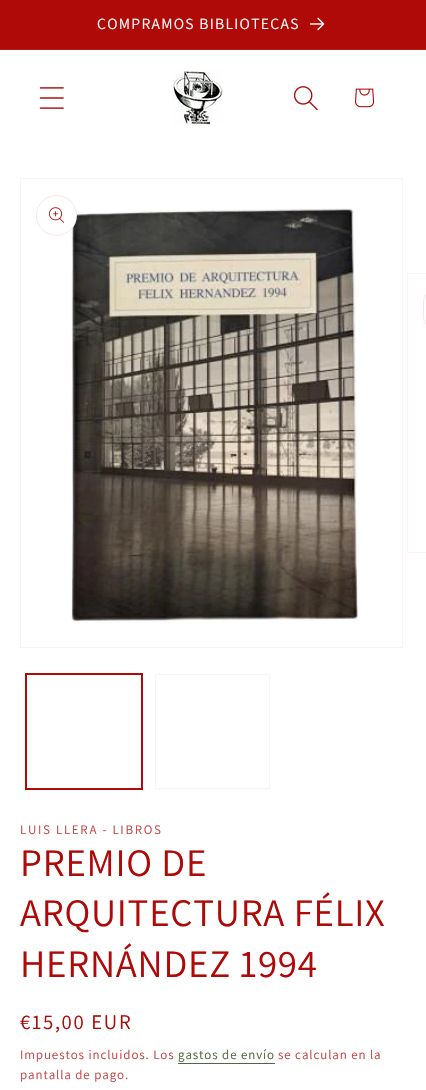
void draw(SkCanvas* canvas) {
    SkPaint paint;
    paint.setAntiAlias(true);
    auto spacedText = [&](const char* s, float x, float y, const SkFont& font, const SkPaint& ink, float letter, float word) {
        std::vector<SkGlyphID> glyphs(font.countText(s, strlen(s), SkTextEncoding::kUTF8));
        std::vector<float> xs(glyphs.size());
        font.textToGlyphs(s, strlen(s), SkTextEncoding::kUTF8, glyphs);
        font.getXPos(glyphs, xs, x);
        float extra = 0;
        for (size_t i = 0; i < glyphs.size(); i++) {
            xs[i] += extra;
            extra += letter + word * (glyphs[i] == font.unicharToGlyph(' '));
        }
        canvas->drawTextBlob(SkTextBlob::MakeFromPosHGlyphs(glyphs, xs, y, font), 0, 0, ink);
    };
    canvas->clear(0xFFFFFFFF);
    paint.setColor(0xFFAF0908);
    canvas->drawRect(SkRect::MakeXYWH(0, 0, 426, 49), paint);
    paint.setColor(0xFFB51D1C);
    canvas->drawRect(SkRect::MakeXYWH(0, 49, 426, 1), paint);
    SkFont font1(fontMgr->matchFamilyStyle("Assistant", SkFontStyle::Normal()), 15.6f);
    font1.setSubpixel(true);
    paint.setColor(0xFFFFFFFF);
    spacedText("COMPRAMOS BIBLIOTECAS", 97, 29, font1, paint, 1.3f, 0);
    canvas->drawImageRect(SkImages::DeferredFromEncodedData(SkData::MakeFromFileName("img1.png")), SkRect::MakeXYWH(310, 17, 15, 14), SkSamplingOptions());
    canvas->drawImageRect(SkImages::DeferredFromEncodedData(SkData::MakeFromFileName("img2.png")), SkRect::MakeXYWH(39, 87, 25, 22), SkSamplingOptions());
    canvas->drawImageRect(SkImages::DeferredFromEncodedData(SkData::MakeFromFileName("img3.png")), SkRect::MakeXYWH(173, 70, 50, 55), SkSamplingOptions());
    canvas->drawImageRect(SkImages::DeferredFromEncodedData(SkData::MakeFromFileName("img4.png")), SkRect::MakeXYWH(293, 86, 25, 25), SkSamplingOptions());
    canvas->drawImageRect(SkImages::DeferredFromEncodedData(SkData::MakeFromFileName("img5.png")), SkRect::MakeXYWH(355, 88, 20, 20), SkSamplingOptions());
    paint.setStyle(SkPaint::kStroke_Style);
    paint.setStrokeWidth(1);
    paint.setColor(0xFFFBF3F3);
    canvas->drawRect(SkRect::MakeXYWH(20.5f, 178.5f, 382, 469), paint);
    canvas->drawImageRect(SkImages::DeferredFromEncodedData(SkData::MakeFromFileName("img7.png")), SkRect::MakeXYWH(71, 208, 290, 415), SkSamplingOptions());
    paint.setStyle(SkPaint::kFill_Style);
    paint.setColor(0xFFFFFFFF);
    canvas->drawCircle(56.5f, 215.5f, 20.5f, paint);
    paint.setStyle(SkPaint::kStroke_Style);
    paint.setColor(0x1AAF0908);
    canvas->drawCircle(56.5f, 215.5f, 20, paint);
    canvas->drawImageRect(SkImages::DeferredFromEncodedData(SkData::MakeFromFileName("img6.png")), SkRect::MakeXYWH(49, 207, 15, 16), SkSamplingOptions());
    paint.setColor(0xFFFBF3F3);
    canvas->drawRect(SkRect::MakeXYWH(407.5f, 273.5f, 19, 279), paint);
    paint.setColor(0xFFF7E6E6);
    canvas->drawRoundRect(SkRect::MakeXYWH(423.5f, 289.5f, 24, 40), 20, 20, paint);
    paint.setColor(0xFFAF0908);
    canvas->drawRect(SkRect::MakeXYWH(25.5f, 673.5f, 117, 116), paint);
    canvas->drawRect(SkRect::MakeXYWH(26.5f, 674.5f, 115, 114), paint);
    paint.setColor(0xFFFBF3F3);
    canvas->drawRect(SkRect::MakeXYWH(155.5f, 674.5f, 114, 114), paint);
    SkFont font2(fontMgr->matchFamilyStyle("Assistant", SkFontStyle::Normal()), 13);
    font2.setSubpixel(true);
    paint.setStyle(SkPaint::kFill_Style);
    paint.setColor(0xFFC34746);
    spacedText("LUIS LLERA - LIBROS", 20, 834, font2, paint, 1.7f, 0);
    SkFont font3(fontMgr->matchFamilyStyle("Assistant", SkFontStyle::Normal()), 39);
    font3.setSubpixel(true);
    paint.setColor(0xFFAF0908);
    spacedText("PREMIO DE", 20, 876, font3, paint, 0.75f, 0);
    spacedText("ARQUITECTURA FÉLIX", 20, 926, font3, paint, 0.75f, 0);
    spacedText("HERNÁNDEZ 1994", 20, 977, font3, paint, 0.75f, 0);
    SkFont font4(fontMgr->matchFamilyStyle("Assistant", SkFontStyle::Normal()), 20.75f);
    font4.setSubpixel(true);
    spacedText("€15,00 EUR", 20, 1029, font4, paint, 1.7f, 0);
    paint.setColor(0xFFC34746);
    spacedText("Impuestos incluidos. Los", 20, 1059, font2, paint, 0.9f, 0);
    paint.setColor(0xFF4D6940);
    spacedText("gastos de envío", 178, 1059, font2, paint, 0.9f, 0);
    canvas->drawRect(SkRect::MakeXYWH(178, 1063, 97, 1), paint);
    paint.setColor(0xFFC34746);
    spacedText("se calculan en la", 278, 1059, font2, paint, 0.9f, 0);
    spacedText("pantalla de pago.", 20, 1079, font2, paint, 0.9f, 0);
}
